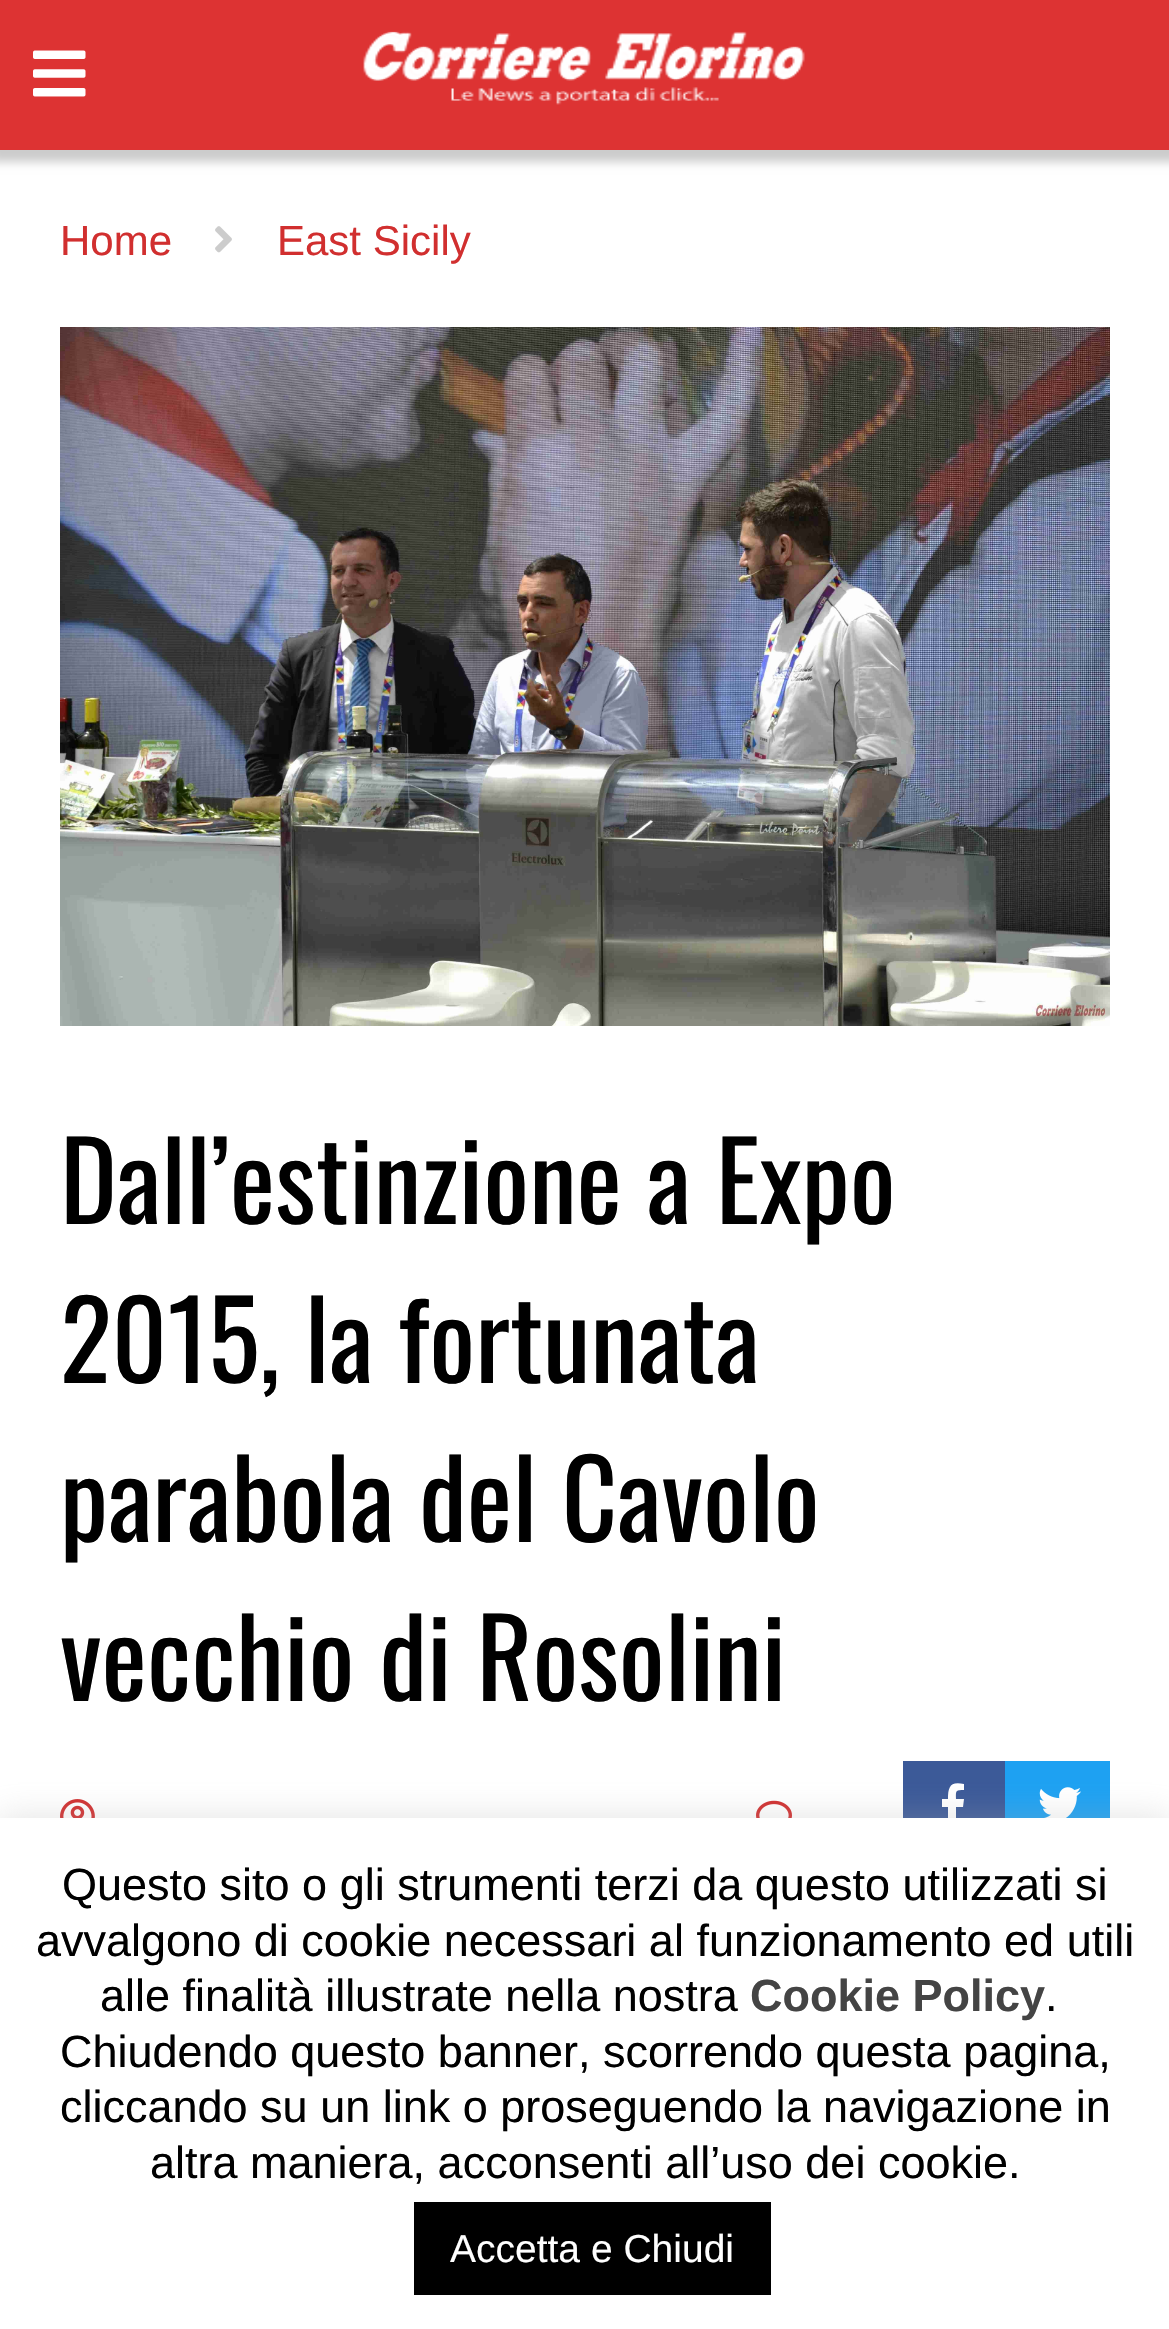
void draw(SkCanvas* canvas) {
    SkPaint paint;
    paint.setAntiAlias(true);
    canvas->clear(0xFFFFFFFF);
    paint.setColor(0x33000000);
    paint.setMaskFilter(SkMaskFilter::MakeBlur(kNormal_SkBlurStyle, 4.5f));
    canvas->drawRect(SkRect::MakeXYWH(-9, -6, 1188, 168), paint);
    paint.setMaskFilter(nullptr);
    paint.setColor(0xFFDD3333);
    canvas->drawRect(SkRect::MakeXYWH(0, 0, 1169, 150), paint);
    canvas->drawImageRect(SkImages::DeferredFromEncodedData(SkData::MakeFromFileName("img1.png")), SkRect::MakeXYWH(33, 50, 53, 47), SkSamplingOptions());
    canvas->drawImageRect(SkImages::DeferredFromEncodedData(SkData::MakeFromFileName("img2.png")), SkRect::MakeXYWH(363, 31, 442, 74), SkSamplingOptions());
    SkFont font1(fontMgr->matchFamilyStyle("Liberation Sans", SkFontStyle::Normal()), 42);
    font1.setSubpixel(true);
    paint.setColor(0xFFD12F2F);
    canvas->drawString("Home", 60, 255, font1, paint);
    canvas->drawImageRect(SkImages::DeferredFromEncodedData(SkData::MakeFromFileName("img3.png")), SkRect::MakeXYWH(215, 226, 17, 27), SkSamplingOptions());
    canvas->drawString("East Sicily", 277, 255, font1, paint);
    canvas->drawImageRect(SkImages::DeferredFromEncodedData(SkData::MakeFromFileName("img4.png")), SkRect::MakeXYWH(60, 327, 1050, 699), SkSamplingOptions());
    SkFont font2(fontMgr->matchFamilyStyle("Oswald", SkFontStyle::Normal()), 108);
    font2.setSubpixel(true);
    paint.setColor(0xFF000000);
    canvas->drawString("Dall’estinzione a Expo", 60, 1224, font2, paint);
    canvas->drawString("2015, la fortunata", 60, 1383, font2, paint);
    canvas->drawString("parabola del Cavolo", 60, 1542, font2, paint);
    canvas->drawString("vecchio di Rosolini", 60, 1701, font2, paint);
    canvas->drawImageRect(SkImages::DeferredFromEncodedData(SkData::MakeFromFileName("img5.png")), SkRect::MakeXYWH(60, 1799, 35, 19), SkSamplingOptions());
    canvas->drawImageRect(SkImages::DeferredFromEncodedData(SkData::MakeFromFileName("img6.png")), SkRect::MakeXYWH(756, 1800, 36, 18), SkSamplingOptions());
    paint.setColor(0xFF3B5998);
    canvas->drawRect(SkRect::MakeXYWH(903, 1761, 102, 57), paint);
    paint.setColor(0xFFFFFFFF);
    canvas->drawPath(SkPathBuilder().moveTo(948, 1826).lineTo(948, 1807).lineTo(942, 1807).lineTo(942, 1799).lineTo(948, 1799).cubicTo(948, 1787, 950, 1781, 964, 1784).lineTo(964, 1790).cubicTo(955, 1790, 956, 1791, 956, 1799).lineTo(964, 1799).lineTo(963, 1807).lineTo(956, 1807).lineTo(956, 1826).close().detach(), paint);
    paint.setColor(0xFF1DA1F2);
    canvas->drawRect(SkRect::MakeXYWH(1005, 1761, 105, 57), paint);
    canvas->drawImageRect(SkImages::DeferredFromEncodedData(SkData::MakeFromFileName("img7.png")), SkRect::MakeXYWH(1039, 1787, 42, 31), SkSamplingOptions());
    paint.setColor(0x4DACABAB);
    paint.setMaskFilter(SkMaskFilter::MakeBlur(kNormal_SkBlurStyle, 15));
    canvas->drawRect(SkRect::MakeXYWH(0, 1815, 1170, 513), paint);
    paint.setMaskFilter(nullptr);
    paint.setColor(0xFFFFFFFF);
    canvas->drawRect(SkRect::MakeXYWH(0, 1818, 1169, 511), paint);
    SkFont font3(fontMgr->matchFamilyStyle("Liberation Sans", SkFontStyle::Normal()), 45);
    font3.setSubpixel(true);
    paint.setColor(0xFF000000);
    canvas->drawString("Questo sito o gli strumenti terzi da questo utilizzati si", 62, 1900, font3, paint);
    canvas->drawString("avvalgono di cookie necessari al funzionamento ed utili", 36, 1956, font3, paint);
    canvas->drawString("alle finalità illustrate nella nostra", 100, 2011, font3, paint);
    SkFont font4(fontMgr->matchFamilyStyle("Liberation Sans", SkFontStyle::Bold()), 45);
    font4.setSubpixel(true);
    paint.setColor(0xFF444444);
    canvas->drawString("Cookie Policy", 750, 2011, font4, paint);
    paint.setColor(0xFF000000);
    canvas->drawString(".", 1045, 2011, font3, paint);
    canvas->drawString("Chiudendo questo banner, scorrendo questa pagina,", 60, 2067, font3, paint);
    canvas->drawString("cliccando su un link o proseguendo la navigazione in", 60, 2122, font3, paint);
    canvas->drawString("altra maniera, acconsenti all’uso dei cookie.", 150, 2178, font3, paint);
    canvas->drawRect(SkRect::MakeXYWH(414, 2202, 357, 93), paint);
    SkFont font5(fontMgr->matchFamilyStyle("Liberation Sans", SkFontStyle::Normal()), 39);
    font5.setSubpixel(true);
    paint.setColor(0xFFFFFFFF);
    canvas->drawString("Accetta e Chiudi", 450, 2262, font5, paint);
}
